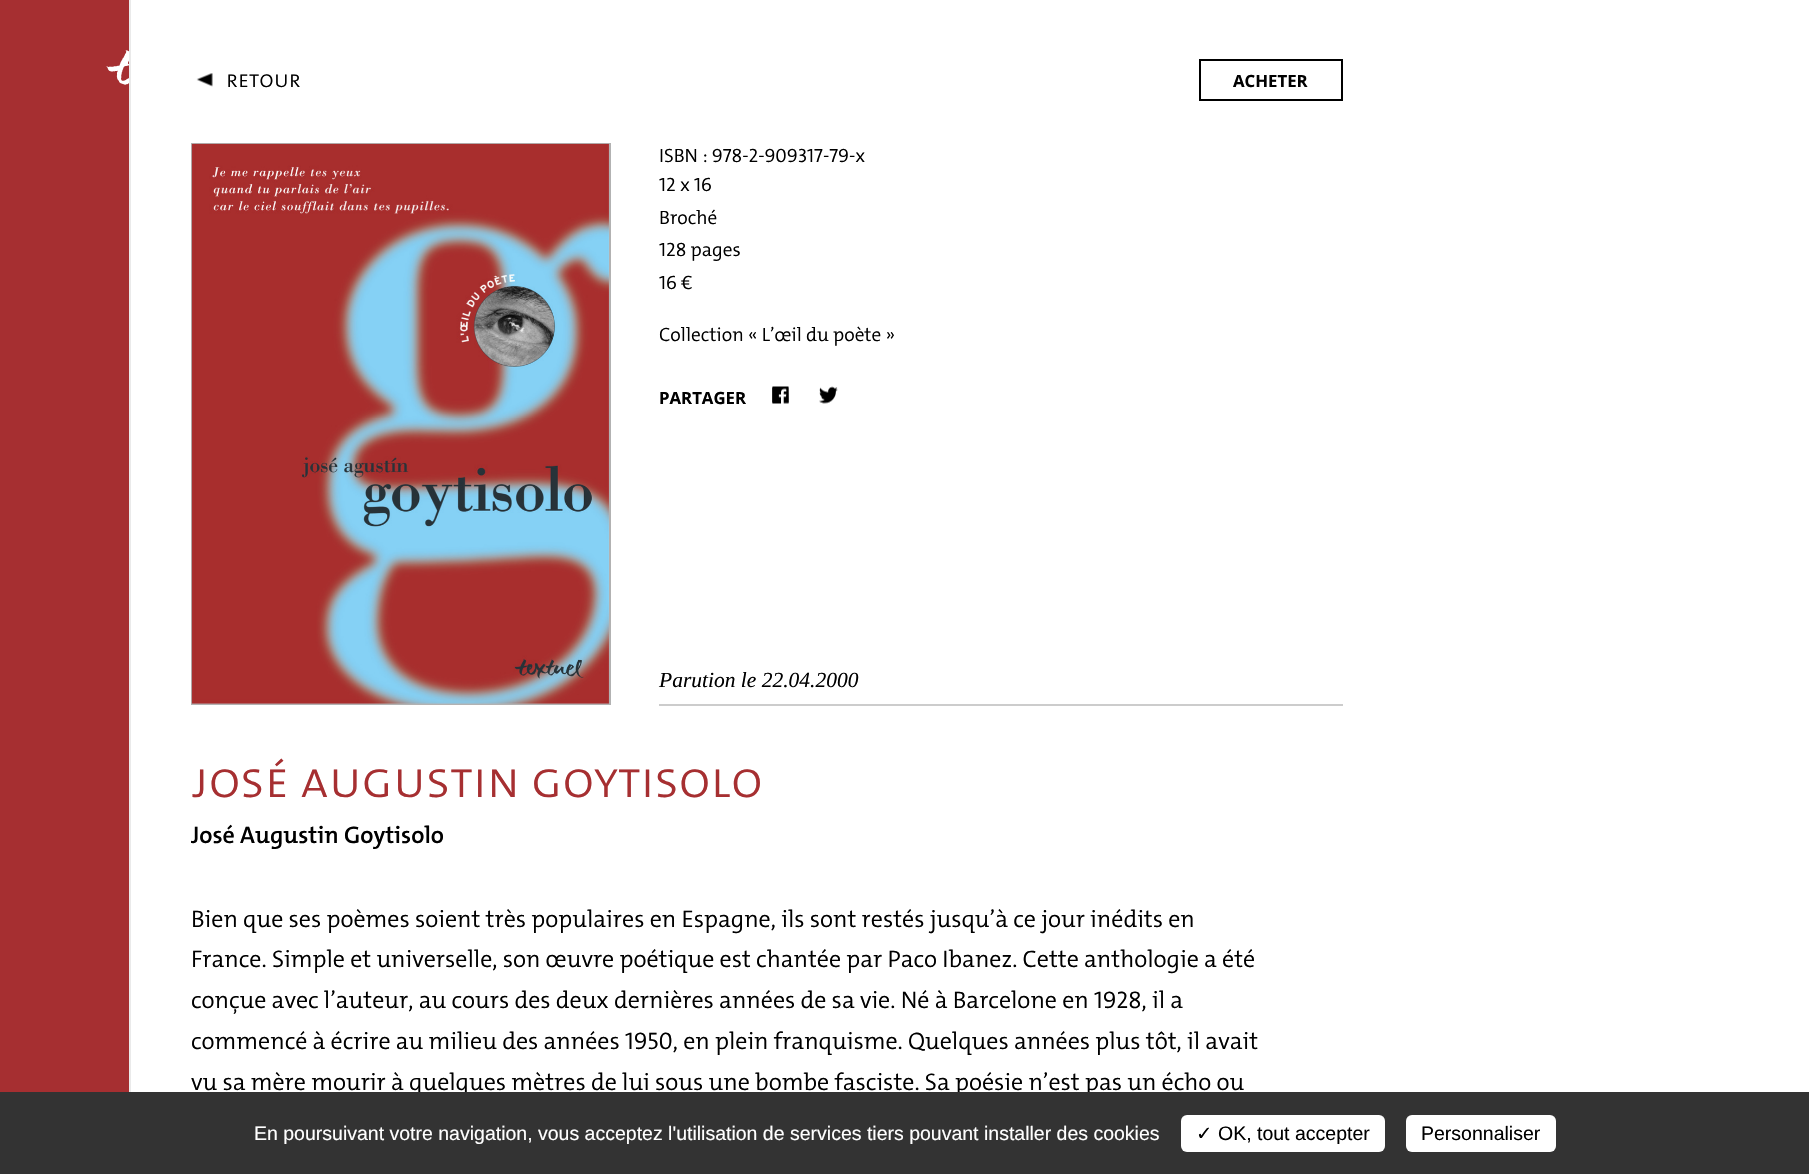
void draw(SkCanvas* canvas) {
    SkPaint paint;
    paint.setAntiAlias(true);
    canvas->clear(0xFFA62F31);
    canvas->drawImageRect(SkImages::DeferredFromEncodedData(SkData::MakeFromFileName("img1.png")), SkRect::MakeXYWH(106, 50, 23, 35), SkSamplingOptions());
    paint.setColor(0xFFFFFFFF);
    canvas->drawRect(SkRect::MakeXYWH(131, 0, 1678, 1092), paint);
    paint.setColor(0xFFEAEAEA);
    canvas->drawRect(SkRect::MakeXYWH(129, 0, 2, 1092), paint);
    canvas->drawImageRect(SkImages::DeferredFromEncodedData(SkData::MakeFromFileName("img2.png")), SkRect::MakeXYWH(196, 73, 17, 14), SkSamplingOptions());
    SkFont font1(fontMgr->matchFamilyStyle("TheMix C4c", SkFontStyle(300, SkFontStyle::kNormal_Width, SkFontStyle::kUpright_Slant)), 24);
    font1.setSubpixel(true);
    paint.setColor(0xFF000000);
    canvas->drawString("retour", 226, 87, font1, paint);
    paint.setStyle(SkPaint::kStroke_Style);
    paint.setStrokeWidth(2);
    paint.setColor(0xFFB2B2B2);
    canvas->drawRect(SkRect::MakeXYWH(192, 144, 418, 560), paint);
    canvas->drawImageRect(SkImages::DeferredFromEncodedData(SkData::MakeFromFileName("img3.png")), SkRect::MakeXYWH(191, 143, 418, 561), SkSamplingOptions());
    paint.setStyle(SkPaint::kFill_Style);
    paint.setColor(0xFFCCCCCC);
    canvas->drawRect(SkRect::MakeXYWH(659, 704, 684, 2), paint);
    paint.setStyle(SkPaint::kStroke_Style);
    paint.setColor(0xFF000000);
    canvas->drawRect(SkRect::MakeXYWH(1200, 60, 142, 40), paint);
    SkFont font2(fontMgr->matchFamilyStyle("Open Sans", SkFontStyle::Bold()), 16.75f);
    font2.setSubpixel(true);
    paint.setStyle(SkPaint::kFill_Style);
    canvas->drawString("ACHETER", 1233, 87, font2, paint);
    SkFont font3(fontMgr->matchFamilyStyle("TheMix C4", SkFontStyle(300, SkFontStyle::kNormal_Width, SkFontStyle::kUpright_Slant)), 19.25f);
    font3.setSubpixel(true);
    canvas->drawString("ISBN : 978-2-909317-79-x", 659, 162, font3, paint);
    canvas->drawString("12 x 16", 659, 191, font3, paint);
    canvas->drawString("Broché", 659, 224, font3, paint);
    canvas->drawString("128 pages", 659, 256, font3, paint);
    canvas->drawString("16 €", 659, 289, font3, paint);
    canvas->drawString("Collection « L’œil du poète »", 659, 341, font3, paint);
    canvas->drawString("PARTAGER", 659, 404, font2, paint);
    canvas->drawImageRect(SkImages::DeferredFromEncodedData(SkData::MakeFromFileName("img4.png")), SkRect::MakeXYWH(772, 386, 17, 18), SkSamplingOptions());
    canvas->drawImageRect(SkImages::DeferredFromEncodedData(SkData::MakeFromFileName("img5.png")), SkRect::MakeXYWH(819, 386, 19, 18), SkSamplingOptions());
    SkFont font4(fontMgr->matchFamilyStyle("Liberation Serif", SkFontStyle::Italic()), 21.5f);
    font4.setSubpixel(true);
    canvas->drawString("Parution le 22.04.2000", 659, 687, font4, paint);
    SkFont font5(fontMgr->matchFamilyStyle("TheMix C4c", SkFontStyle(300, SkFontStyle::kNormal_Width, SkFontStyle::kUpright_Slant)), 52.75f);
    font5.setSubpixel(true);
    paint.setColor(0xFFA62F31);
    canvas->drawString("josé augustin goytisolo", 191, 797, font5, paint);
    SkFont font6(fontMgr->matchFamilyStyle("TheMix C4", SkFontStyle(600, SkFontStyle::kNormal_Width, SkFontStyle::kUpright_Slant)), 24);
    font6.setSubpixel(true);
    paint.setColor(0xFF000000);
    canvas->drawString("José Augustin Goytisolo", 191, 843, font6, paint);
    SkFont font7(fontMgr->matchFamilyStyle("TheMix C4", SkFontStyle(300, SkFontStyle::kNormal_Width, SkFontStyle::kUpright_Slant)), 24);
    font7.setSubpixel(true);
    canvas->drawString("Bien que ses poèmes soient très populaires en Espagne, ils sont restés jusqu’à ce jour inédits en", 191, 927, font7, paint);
    canvas->drawString("France. Simple et universelle, son œuvre poétique est chantée par Paco Ibanez. Cette anthologie a été", 191, 967, font7, paint);
    canvas->drawString("conçue avec l’auteur, au cours des deux dernières années de sa vie. Né à Barcelone en 1928, il a", 191, 1008, font7, paint);
    canvas->drawString("commencé à écrire au milieu des années 1950, en plein franquisme. Quelques années plus tôt, il avait", 191, 1049, font7, paint);
    canvas->drawString("vu sa mère mourir à quelques mètres de lui sous une bombe fasciste. Sa poésie n’est pas un écho ou", 191, 1090, font7, paint);
    paint.setColor(0xFF333333);
    canvas->drawRect(SkRect::MakeXYWH(0, 1092, 1809, 82), paint);
    SkFont font8(fontMgr->matchFamilyStyle("Liberation Sans", SkFontStyle::Normal()), 19.5f);
    font8.setSubpixel(true);
    paint.setColor(0xFFFFFFFF);
    canvas->drawString("En poursuivant votre navigation, vous acceptez l'utilisation de services tiers pouvant installer des cookies", 254, 1140, font8, paint);
    canvas->drawRoundRect(SkRect::MakeXYWH(1181, 1115, 204, 37), 6, 6, paint);
    SkFont font9(fontMgr->matchFamilyStyle("DejaVu Sans", SkFontStyle::Normal()), 19.5f);
    font9.setSubpixel(true);
    paint.setColor(0xFF000000);
    canvas->drawString("✓", 1196, 1140, font9, paint);
    canvas->drawString("OK, tout accepter", 1218, 1140, font8, paint);
    paint.setColor(0xFFFFFFFF);
    canvas->drawRoundRect(SkRect::MakeXYWH(1406, 1115, 150, 37), 6, 6, paint);
    paint.setColor(0xFF000000);
    canvas->drawString("Personnaliser", 1421, 1140, font8, paint);
}
